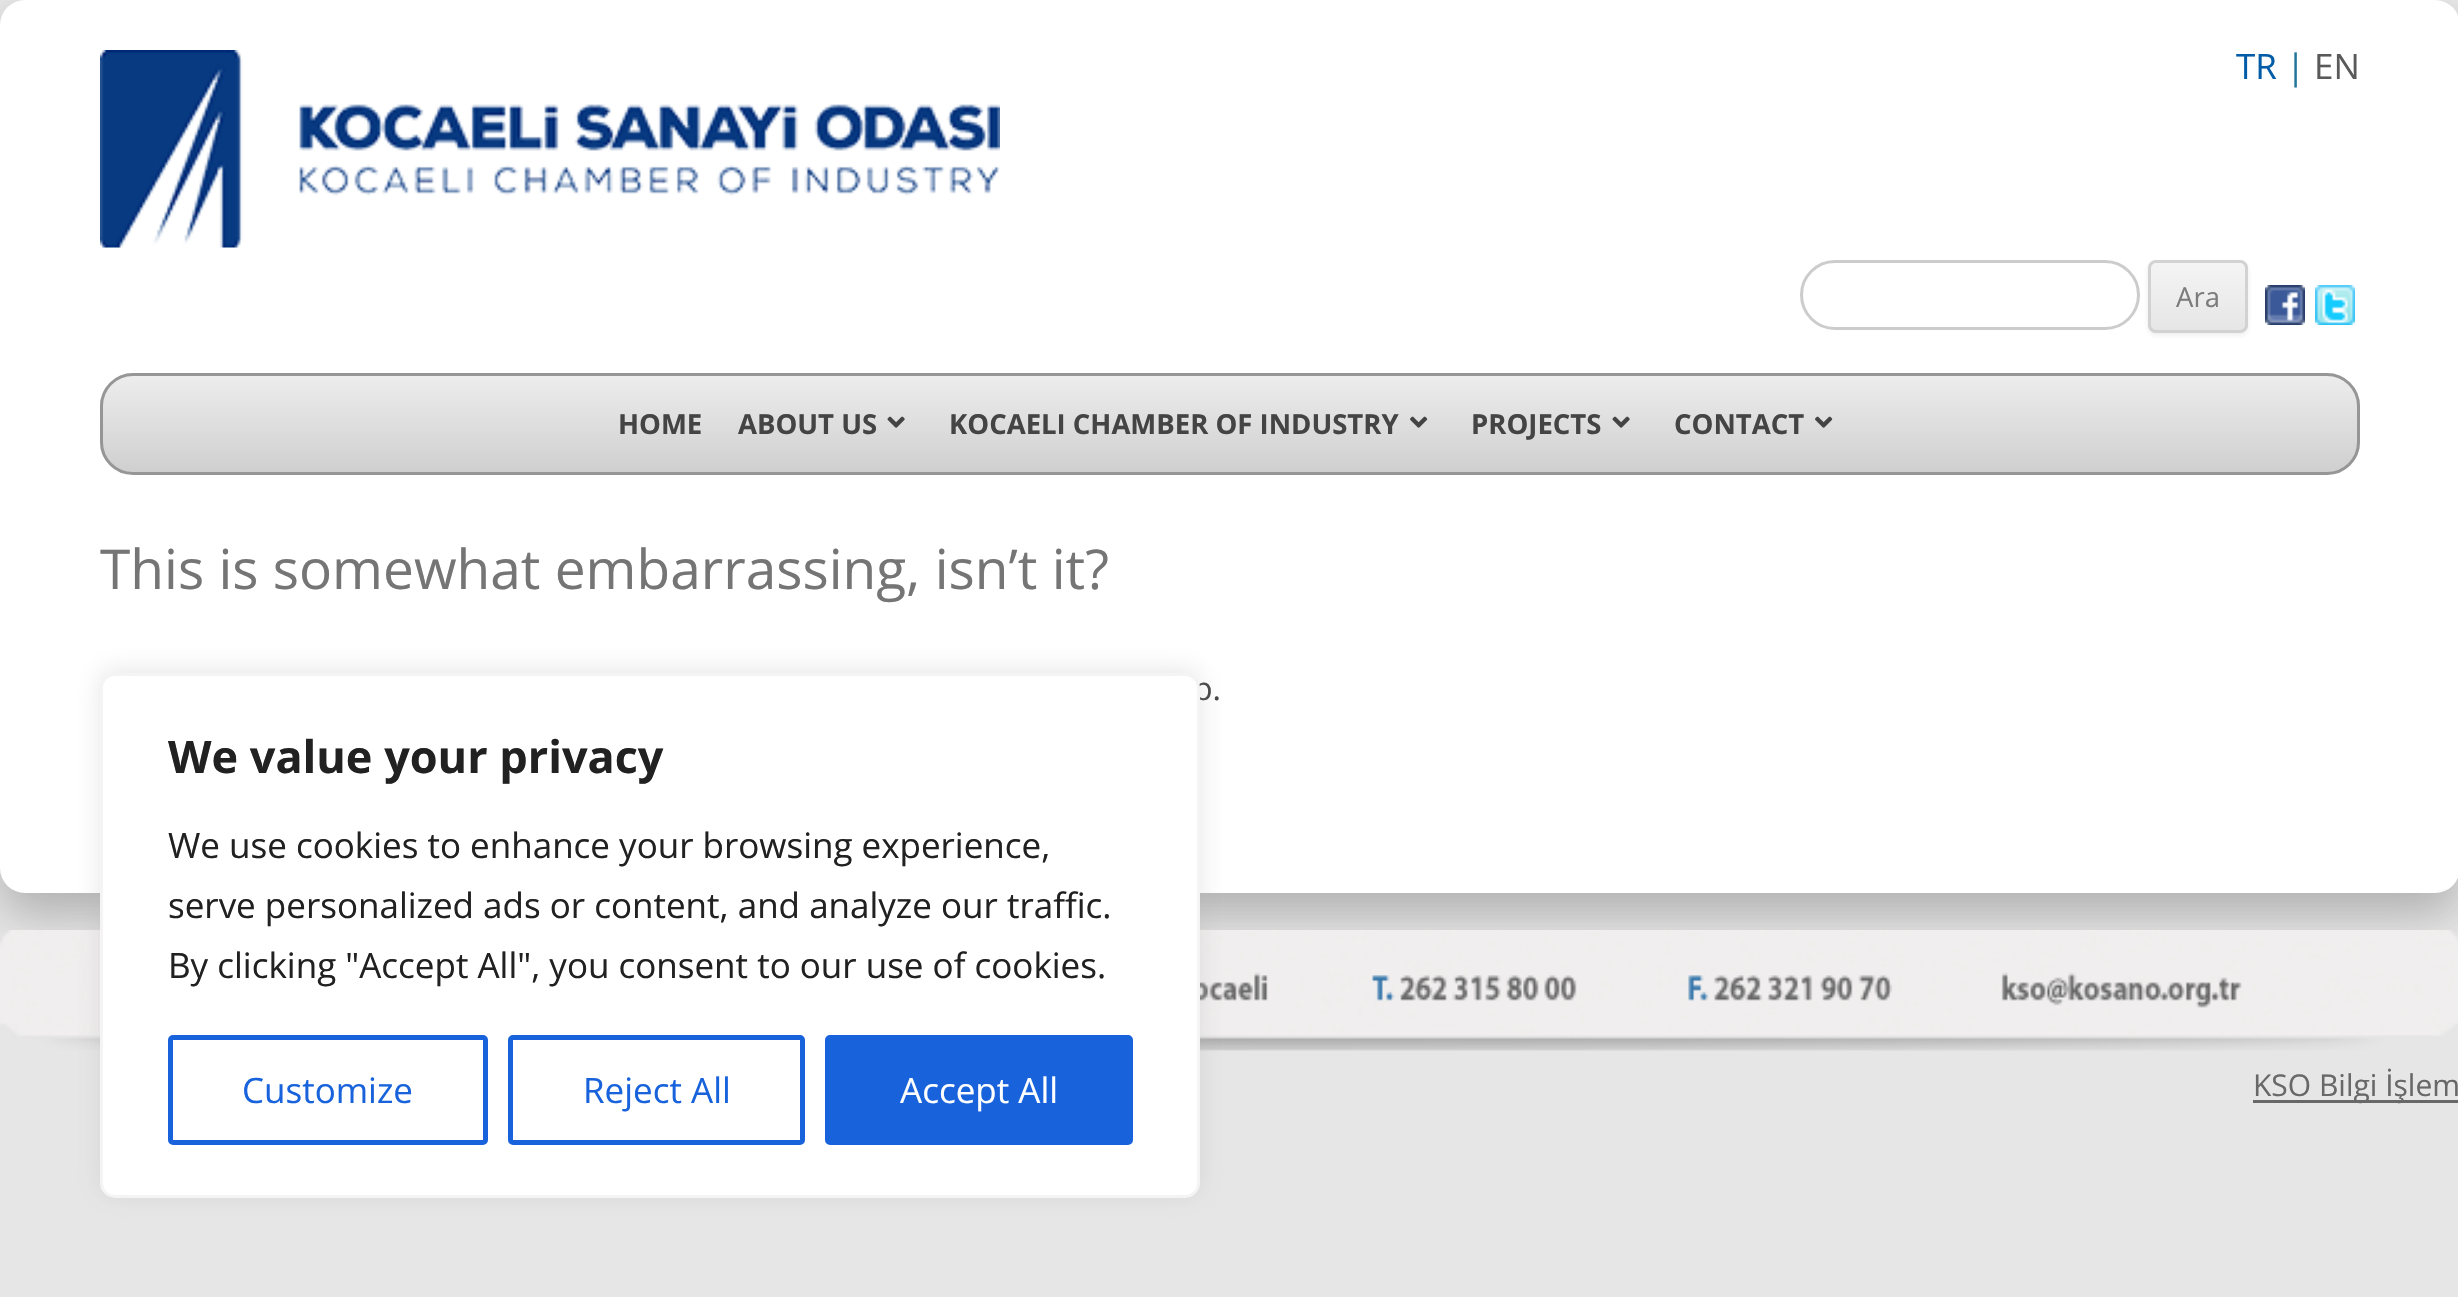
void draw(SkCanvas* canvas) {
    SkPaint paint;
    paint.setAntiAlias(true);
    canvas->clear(0xFFE6E6E6);
    paint.setColor(0x4D323232);
    paint.setMaskFilter(SkMaskFilter::MakeBlur(kNormal_SkBlurStyle, 24));
    canvas->drawRoundRect(SkRect::MakeXYWH(0, 23, 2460, 892), 25, 25, paint);
    paint.setMaskFilter(nullptr);
    paint.setColor(0xFFFFFFFF);
    canvas->drawRoundRect(SkRect::MakeXYWH(0, 0, 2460, 893), 25, 25, paint);
    canvas->drawImageRect(SkImages::DeferredFromEncodedData(SkData::MakeFromFileName("img1.png")), SkRect::MakeXYWH(100, 50, 900, 198), SkSamplingOptions());
    SkFont font1(fontMgr->matchFamilyStyle("Open Sans", SkFontStyle::Normal()), 35);
    font1.setSubpixel(true);
    paint.setColor(0xFF025CA8);
    canvas->drawString("TR", 2236, 79, font1, paint);
    paint.setColor(0xFF21759B);
    canvas->drawString("|", 2286, 79, font1, paint);
    paint.setColor(0xFF595959);
    canvas->drawString("EN", 2314, 79, font1, paint);
    paint.setStyle(SkPaint::kStroke_Style);
    paint.setStrokeWidth(3);
    paint.setColor(0xFFCCCCCC);
    canvas->drawRoundRect(SkRect::MakeXYWH(1801.5f, 261.5f, 337, 67), 33.5f, 33.5f, paint);
    paint.setStyle(SkPaint::kFill_Style);
    paint.setColor(0x1A404040);
    paint.setMaskFilter(SkMaskFilter::MakeBlur(kNormal_SkBlurStyle, 2.5f));
    canvas->drawRoundRect(SkRect::MakeXYWH(2148, 263, 100, 72), 8, 8, paint);
    paint.setMaskFilter(nullptr);
    canvas->save();
    canvas->clipPath(SkPathBuilder().moveTo(2156, 260).lineTo(2240, 260).cubicTo(2244.5f, 260, 2248, 263.5f, 2248, 268).lineTo(2248, 325).cubicTo(2248, 329.5f, 2244.5f, 333, 2240, 333).lineTo(2156, 333).cubicTo(2151.5f, 333, 2148, 329.5f, 2148, 325).lineTo(2148, 268).cubicTo(2148, 263.5f, 2151.5f, 260, 2156, 260).close().detach(), true);
    {
        const SkColor colors[] = {0xFFF4F4F4, 0xFFE6E6E6};
        const float stops[] = {0, 1};
        const SkPoint ends[] = {{2198, 263}, {2198, 330}};
        paint.setShader(SkGradientShader::MakeLinear(ends, colors, stops, 2, SkTileMode::kClamp));
        paint.setAlpha(255);
    }
    canvas->drawRect(SkRect::MakeXYWH(2148, 263, 100, 67), paint);
    canvas->restore();
    paint.setStyle(SkPaint::kStroke_Style);
    paint.setShader(nullptr);
    paint.setColor(0xFFD2D2D2);
    canvas->drawRoundRect(SkRect::MakeXYWH(2149.5f, 261.5f, 97, 70), 6.5f, 6.5f, paint);
    SkFont font2(fontMgr->matchFamilyStyle("Open Sans", SkFontStyle::Normal()), 27.5f);
    font2.setSubpixel(true);
    paint.setStyle(SkPaint::kFill_Style);
    paint.setColor(0xFF7C7C7C);
    canvas->drawString("Ara", 2176, 307, font2, paint);
    canvas->drawImageRect(SkImages::DeferredFromEncodedData(SkData::MakeFromFileName("img2.png")), SkRect::MakeXYWH(2265, 285, 40, 40), SkSamplingOptions());
    canvas->drawImageRect(SkImages::DeferredFromEncodedData(SkData::MakeFromFileName("img3.png")), SkRect::MakeXYWH(2315, 285, 40, 40), SkSamplingOptions());
    canvas->save();
    canvas->clipPath(SkPathBuilder().moveTo(133, 373).lineTo(2327, 373).cubicTo(2345, 373, 2360, 388, 2360, 406).lineTo(2360, 442).cubicTo(2360, 460, 2345, 475, 2327, 475).lineTo(133, 475).cubicTo(115, 475, 100, 460, 100, 442).lineTo(100, 406).cubicTo(100, 388, 115, 373, 133, 373).close().detach(), true);
    {
        const SkColor colors[] = {0xFFEDEDED, 0xFFCFCFCF};
        const float stops[] = {0, 1};
        const SkPoint ends[] = {{1230, 375}, {1230, 473}};
        paint.setShader(SkGradientShader::MakeLinear(ends, colors, stops, 2, SkTileMode::kClamp));
        paint.setAlpha(255);
    }
    canvas->drawRect(SkRect::MakeXYWH(100, 375, 2260, 98), paint);
    canvas->restore();
    paint.setStyle(SkPaint::kStroke_Style);
    paint.setShader(nullptr);
    paint.setColor(0xFF969696);
    canvas->drawRoundRect(SkRect::MakeXYWH(101.5f, 374.5f, 2257, 99), 31.5f, 31.5f, paint);
    SkFont font3(fontMgr->matchFamilyStyle("Open Sans", SkFontStyle::Bold()), 27.5f);
    font3.setSubpixel(true);
    paint.setStyle(SkPaint::kFill_Style);
    paint.setColor(0xFF444444);
    canvas->drawString("HOME", 618, 434, font3, paint);
    canvas->drawString("ABOUT US", 738, 434, font3, paint);
    canvas->drawImageRect(SkImages::DeferredFromEncodedData(SkData::MakeFromFileName("img4.png")), SkRect::MakeXYWH(887, 416, 18, 12), SkSamplingOptions());
    canvas->drawString("KOCAELI CHAMBER OF INDUSTRY", 949, 434, font3, paint);
    canvas->drawImageRect(SkImages::DeferredFromEncodedData(SkData::MakeFromFileName("img5.png")), SkRect::MakeXYWH(1410, 416, 18, 12), SkSamplingOptions());
    canvas->drawString("PROJECTS", 1471, 434, font3, paint);
    canvas->drawImageRect(SkImages::DeferredFromEncodedData(SkData::MakeFromFileName("img4.png")), SkRect::MakeXYWH(1612, 416, 18, 12), SkSamplingOptions());
    canvas->drawString("CONTACT", 1674, 434, font3, paint);
    canvas->drawImageRect(SkImages::DeferredFromEncodedData(SkData::MakeFromFileName("img5.png")), SkRect::MakeXYWH(1815, 416, 18, 12), SkSamplingOptions());
    SkFont font4(fontMgr->matchFamilyStyle("Open Sans", SkFontStyle::Normal()), 55);
    font4.setSubpixel(true);
    paint.setColor(0xFF757575);
    canvas->drawString("This is somewhat embarrassing, isn’t it?", 100, 589, font4, paint);
    SkFont font5(fontMgr->matchFamilyStyle("Open Sans", SkFontStyle::Normal()), 32);
    font5.setSubpixel(true);
    paint.setColor(0xFF444444);
    canvas->drawString("p.", 1193, 700, font5, paint);
    canvas->drawImageRect(SkImages::DeferredFromEncodedData(SkData::MakeFromFileName("img6.png")), SkRect::MakeXYWH(0, 930, 2458, 121), SkSamplingOptions());
    paint.setColor(0x4DACABAB);
    paint.setMaskFilter(SkMaskFilter::MakeBlur(kNormal_SkBlurStyle, 12.5f));
    canvas->drawRoundRect(SkRect::MakeXYWH(100, 670, 1100, 525), 15, 15, paint);
    paint.setMaskFilter(nullptr);
    paint.setColor(0xFFFFFFFF);
    canvas->drawRoundRect(SkRect::MakeXYWH(101.5f, 674.5f, 1097, 522), 13.5f, 13.5f, paint);
    paint.setStyle(SkPaint::kStroke_Style);
    paint.setColor(0xFFF4F4F4);
    canvas->drawRoundRect(SkRect::MakeXYWH(101.5f, 674.5f, 1097, 522), 13.5f, 13.5f, paint);
    SkFont font6(fontMgr->matchFamilyStyle("Open Sans", SkFontStyle::Bold()), 45);
    font6.setSubpixel(true);
    paint.setStyle(SkPaint::kFill_Style);
    paint.setColor(0xFF212121);
    canvas->drawString("We value your privacy", 168, 773, font6, paint);
    canvas->drawString("We use cookies to enhance your browsing experience,", 168, 858, font1, paint);
    canvas->drawString("serve personalized ads or content, and analyze our traffic.", 168, 918, font1, paint);
    canvas->drawString("By clicking \"Accept All\", you consent to our use of cookies.", 168, 978, font1, paint);
    paint.setStyle(SkPaint::kStroke_Style);
    paint.setStrokeWidth(5);
    paint.setColor(0xFF1863DC);
    canvas->drawRoundRect(SkRect::MakeXYWH(170.5f, 1037.5f, 315, 105), 2.5f, 2.5f, paint);
    paint.setStyle(SkPaint::kFill_Style);
    canvas->drawString("Customize", 242, 1103, font1, paint);
    paint.setStyle(SkPaint::kStroke_Style);
    canvas->drawRoundRect(SkRect::MakeXYWH(510.5f, 1037.5f, 292, 105), 2.5f, 2.5f, paint);
    paint.setStyle(SkPaint::kFill_Style);
    canvas->drawString("Reject All", 583, 1103, font1, paint);
    canvas->drawRoundRect(SkRect::MakeXYWH(827.5f, 1037.5f, 303, 105), 2.5f, 2.5f, paint);
    paint.setStyle(SkPaint::kStroke_Style);
    canvas->drawRoundRect(SkRect::MakeXYWH(827.5f, 1037.5f, 303, 105), 2.5f, 2.5f, paint);
    paint.setStyle(SkPaint::kFill_Style);
    paint.setColor(0xFFFFFFFF);
    canvas->drawString("Accept All", 900, 1103, font1, paint);
    paint.setColor(0xFF686868);
    canvas->drawRect(SkRect::MakeXYWH(2253, 1100, 205, 3), paint);
    SkFont font7(fontMgr->matchFamilyStyle("Open Sans", SkFontStyle::Normal()), 30);
    font7.setSubpixel(true);
    canvas->drawString("KSO Bilgi İşlem", 2253, 1096, font7, paint);
}
